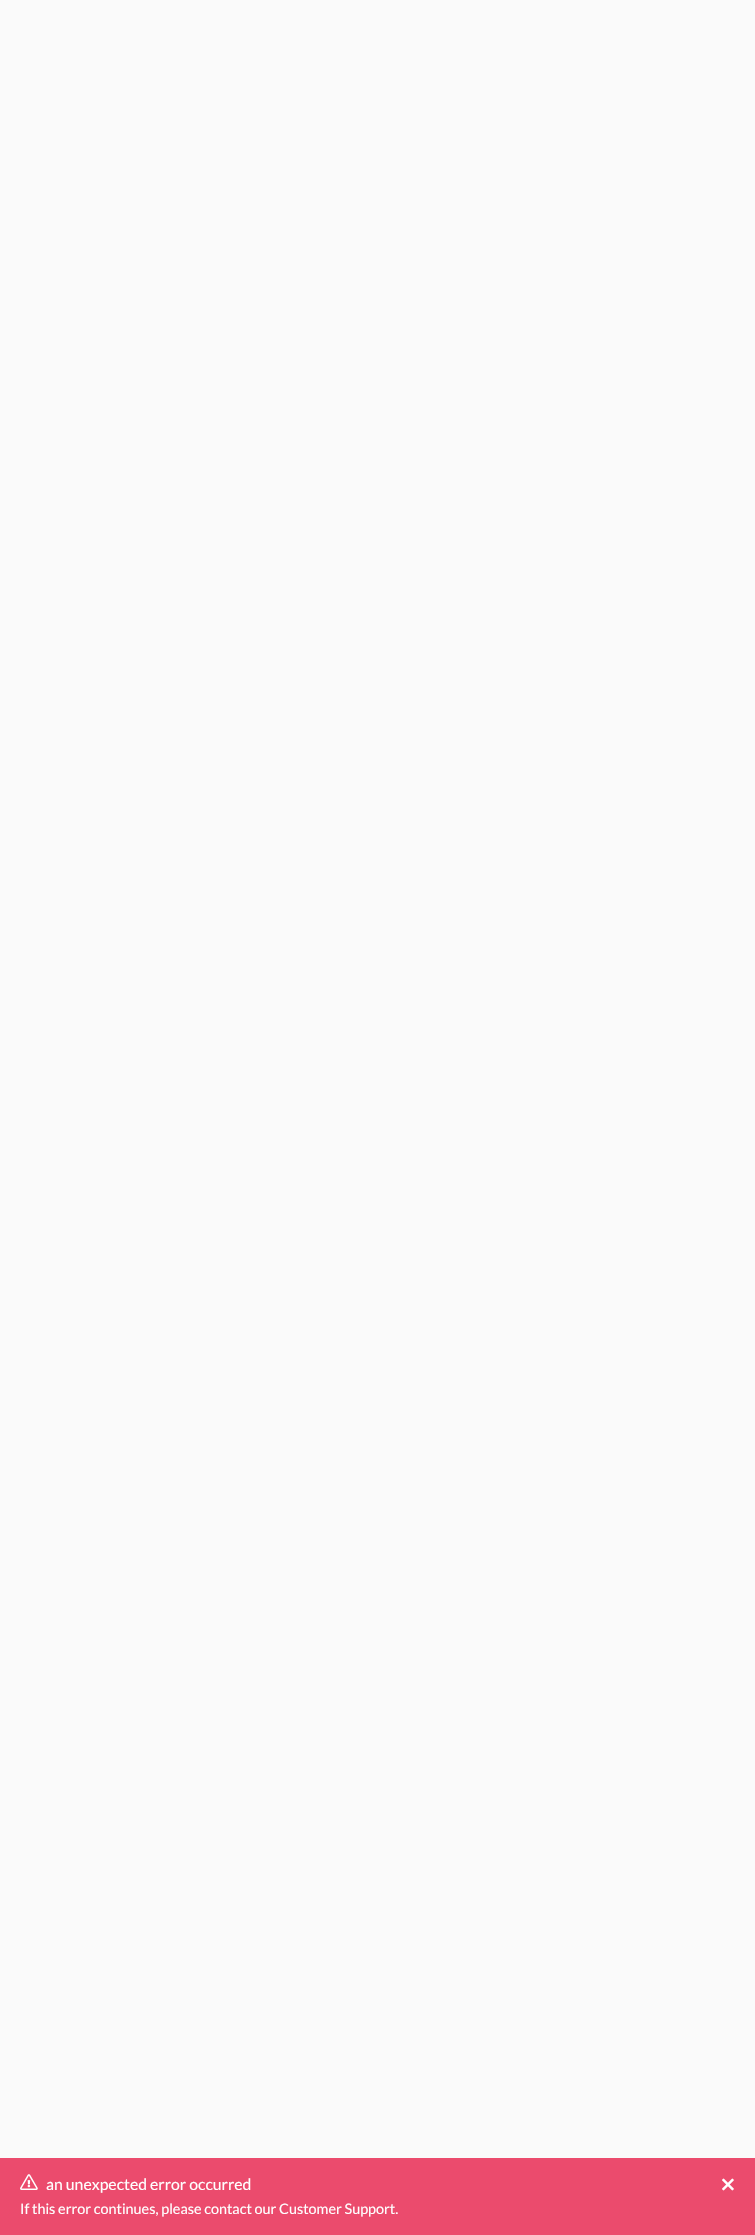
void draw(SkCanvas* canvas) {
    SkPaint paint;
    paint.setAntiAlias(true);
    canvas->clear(0xFFFAFAFA);
    paint.setColor(0xFFEB4B6D);
    canvas->drawRect(SkRect::MakeXYWH(0, 2158, 755, 77), paint);
    canvas->drawImageRect(SkImages::DeferredFromEncodedData(SkData::MakeFromFileName("img1.png")), SkRect::MakeXYWH(20, 2174, 18, 16), SkSamplingOptions());
    SkFont font1(fontMgr->matchFamilyStyle("Lato", SkFontStyle::Normal()), 15.8f);
    font1.setSubpixel(true);
    paint.setColor(0xFFFFFFFF);
    canvas->drawString("an unexpected error occurred", 46, 2190, font1, paint);
    canvas->drawImageRect(SkImages::DeferredFromEncodedData(SkData::MakeFromFileName("img2.png")), SkRect::MakeXYWH(722, 2178, 12, 13), SkSamplingOptions());
    SkFont font2(fontMgr->matchFamilyStyle("Lato", SkFontStyle::Normal()), 14.4f);
    font2.setSubpixel(true);
    canvas->drawString("If this error continues, please contact our Customer Support.", 20, 2214, font2, paint);
}
